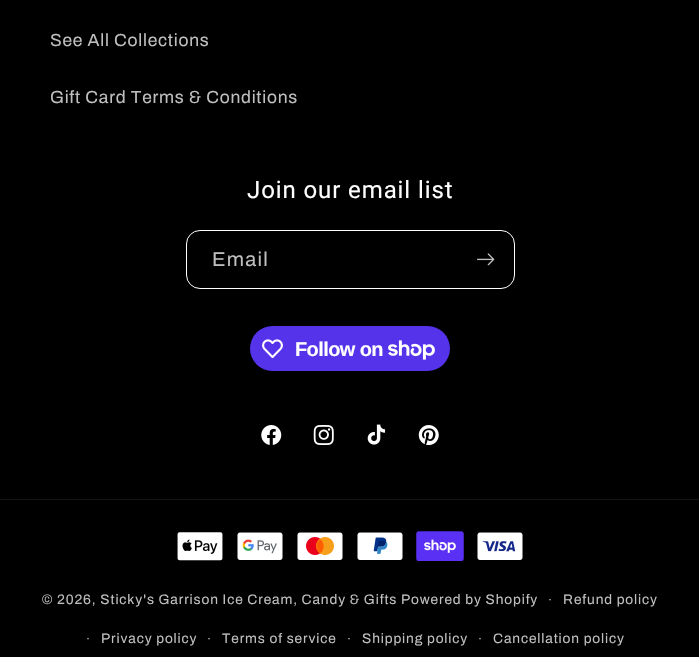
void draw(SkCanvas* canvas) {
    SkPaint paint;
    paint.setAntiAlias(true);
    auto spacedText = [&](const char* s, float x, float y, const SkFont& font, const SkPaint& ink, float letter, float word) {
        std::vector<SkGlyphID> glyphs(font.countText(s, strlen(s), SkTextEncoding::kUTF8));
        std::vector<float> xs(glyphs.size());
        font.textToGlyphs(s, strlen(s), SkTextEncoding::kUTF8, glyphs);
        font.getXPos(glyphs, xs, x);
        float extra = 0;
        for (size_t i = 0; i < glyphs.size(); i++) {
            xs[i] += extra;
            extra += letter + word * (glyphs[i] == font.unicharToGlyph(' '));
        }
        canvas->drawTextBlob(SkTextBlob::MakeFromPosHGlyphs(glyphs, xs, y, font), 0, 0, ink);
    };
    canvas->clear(0xFF000000);
    SkFont font1(fontMgr->matchFamilyStyle("Archivo", SkFontStyle::Normal()), 17.5f);
    font1.setSubpixel(true);
    paint.setColor(0xFFBFBFBF);
    spacedText("See All Collections", 50, 46, font1, paint, 0.75f, 0);
    spacedText("Gift Card Terms & Conditions", 50, 103, font1, paint, 0.75f, 0);
    SkFont font2(fontMgr->matchFamilyStyle("Roboto", SkFontStyle::Normal()), 24);
    font2.setSubpixel(true);
    paint.setColor(0xFFFFFFFF);
    spacedText("Join our email list", 247, 198, font2, paint, 0.9f, 0);
    paint.setStyle(SkPaint::kStroke_Style);
    paint.setStrokeWidth(1);
    canvas->drawRoundRect(SkRect::MakeXYWH(186.5f, 230.5f, 328, 58), 13.5f, 13.5f, paint);
    SkFont font3(fontMgr->matchFamilyStyle("Archivo", SkFontStyle::Normal()), 20);
    font3.setSubpixel(true);
    paint.setStyle(SkPaint::kFill_Style);
    paint.setColor(0xFFBFBFBF);
    spacedText("Email", 212, 266, font3, paint, 1.25f, 0);
    canvas->drawImageRect(SkImages::DeferredFromEncodedData(SkData::MakeFromFileName("img1.png")), SkRect::MakeXYWH(477, 253, 18, 13), SkSamplingOptions());
    paint.setColor(0xFF5433EB);
    canvas->drawRoundRect(SkRect::MakeXYWH(250, 326, 200, 45), 22.5f, 22.5f, paint);
    canvas->drawImageRect(SkImages::DeferredFromEncodedData(SkData::MakeFromFileName("img2.png")), SkRect::MakeXYWH(262, 339, 21, 20), SkSamplingOptions());
    SkFont font4(fontMgr->matchFamilyStyle("Liberation Sans", SkFontStyle::Bold()), 20);
    font4.setSubpixel(true);
    paint.setColor(0xFFFFFFFF);
    spacedText("Follow on", 295, 356, font4, paint, -0.6f, 0);
    canvas->drawImageRect(SkImages::DeferredFromEncodedData(SkData::MakeFromFileName("img3.png")), SkRect::MakeXYWH(388, 340, 47, 20), SkSamplingOptions());
    canvas->drawImageRect(SkImages::DeferredFromEncodedData(SkData::MakeFromFileName("img4.png")), SkRect::MakeXYWH(261, 425, 21, 20), SkSamplingOptions());
    canvas->drawImageRect(SkImages::DeferredFromEncodedData(SkData::MakeFromFileName("img5.png")), SkRect::MakeXYWH(313, 425, 21, 20), SkSamplingOptions());
    canvas->drawImageRect(SkImages::DeferredFromEncodedData(SkData::MakeFromFileName("img6.png")), SkRect::MakeXYWH(367, 424, 19, 21), SkSamplingOptions());
    canvas->drawImageRect(SkImages::DeferredFromEncodedData(SkData::MakeFromFileName("img7.png")), SkRect::MakeXYWH(418, 425, 21, 21), SkSamplingOptions());
    paint.setColor(0xFF141414);
    canvas->drawRect(SkRect::MakeXYWH(0, 499, 699, 1), paint);
    canvas->drawImageRect(SkImages::DeferredFromEncodedData(SkData::MakeFromFileName("img8.png")), SkRect::MakeXYWH(177, 532, 46, 29), SkSamplingOptions());
    canvas->drawImageRect(SkImages::DeferredFromEncodedData(SkData::MakeFromFileName("img9.png")), SkRect::MakeXYWH(237, 532, 46, 28), SkSamplingOptions());
    canvas->drawImageRect(SkImages::DeferredFromEncodedData(SkData::MakeFromFileName("img10.png")), SkRect::MakeXYWH(297, 532, 46, 28), SkSamplingOptions());
    canvas->drawImageRect(SkImages::DeferredFromEncodedData(SkData::MakeFromFileName("img11.png")), SkRect::MakeXYWH(357, 532, 46, 28), SkSamplingOptions());
    canvas->drawImageRect(SkImages::DeferredFromEncodedData(SkData::MakeFromFileName("img12.png")), SkRect::MakeXYWH(416, 531, 48, 30), SkSamplingOptions());
    canvas->drawImageRect(SkImages::DeferredFromEncodedData(SkData::MakeFromFileName("img13.png")), SkRect::MakeXYWH(477, 532, 46, 28), SkSamplingOptions());
    SkFont font5(fontMgr->matchFamilyStyle("Archivo", SkFontStyle::Normal()), 13.75f);
    font5.setSubpixel(true);
    paint.setColor(0xFFBFBFBF);
    spacedText("© 2026, Sticky's Garrison Ice Cream, Candy & Gifts Powered by Shopify", 42, 604, font5, paint, 0.88f, 0);
    SkFont font6(fontMgr->matchFamilyStyle("Archivo", SkFontStyle::Normal()), 12);
    font6.setSubpixel(true);
    spacedText("·", 548, 604, font6, paint, 0.88f, 0);
    spacedText("Refund policy", 563, 604, font5, paint, 0.88f, 0);
    spacedText("·", 86, 643, font6, paint, 0.88f, 0);
    spacedText("Privacy policy", 101, 643, font5, paint, 0.88f, 0);
    spacedText("·", 207, 643, font6, paint, 0.88f, 0);
    spacedText("Terms of service", 222, 643, font5, paint, 0.88f, 0);
    spacedText("·", 347, 643, font6, paint, 0.88f, 0);
    spacedText("Shipping policy", 362, 643, font5, paint, 0.88f, 0);
    spacedText("·", 478, 643, font6, paint, 0.88f, 0);
    spacedText("Cancellation policy", 493, 643, font5, paint, 0.88f, 0);
}
